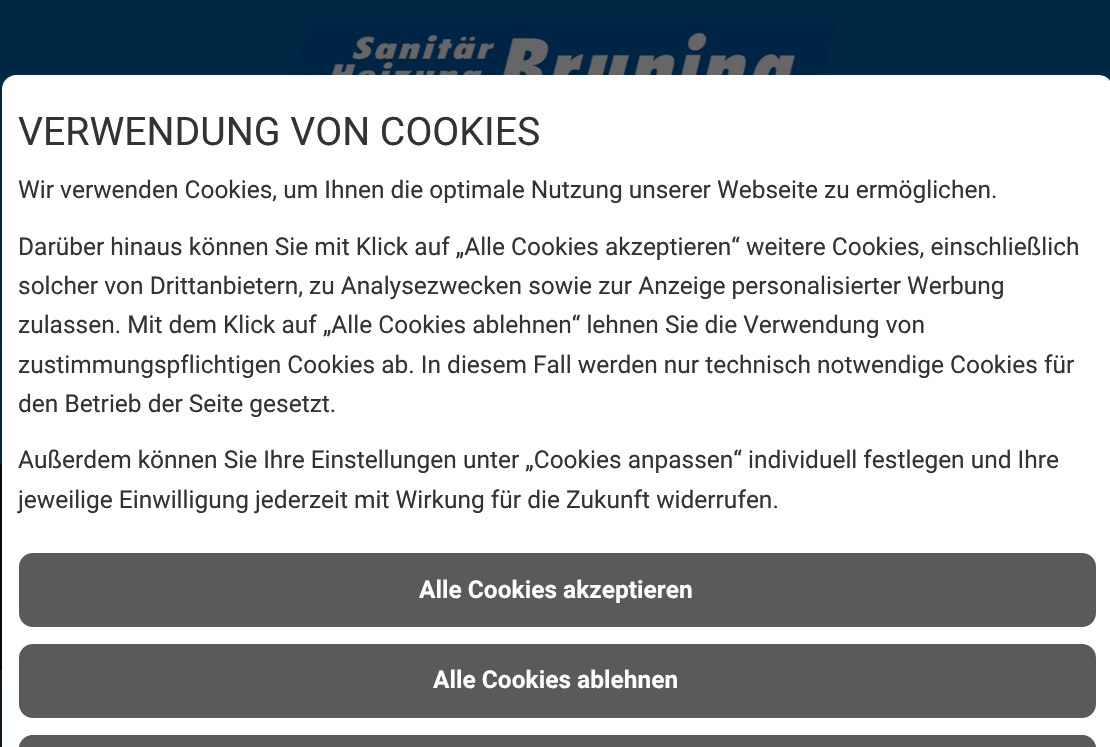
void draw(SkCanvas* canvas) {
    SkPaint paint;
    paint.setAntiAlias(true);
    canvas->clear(0xFF040A0D);
    paint.setColor(0xFF002744);
    canvas->drawRect(SkRect::MakeXYWH(0, 0, 1110, 350), paint);
    canvas->drawImageRect(SkImages::DeferredFromEncodedData(SkData::MakeFromFileName("img1.png")), SkRect::MakeXYWH(294, 25, 543, 50), SkSamplingOptions());
    canvas->drawRect(SkRect::MakeXYWH(0, 352, 2, 112), paint);
    paint.setColor(0xFF003259);
    canvas->drawRect(SkRect::MakeXYWH(0, 350, 2, 2), paint);
    paint.setColor(0xFF0C1A24);
    canvas->drawRect(SkRect::MakeXYWH(0, 670, 2, 77), paint);
    paint.setColor(0xFFFFFFFF);
    canvas->drawPath(SkPathBuilder().moveTo(16, 75).lineTo(1099, 75).cubicTo(1106.5f, 75, 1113, 81.5f, 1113, 89).lineTo(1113, 747).lineTo(2, 747).lineTo(2, 89).cubicTo(2, 81.5f, 8.5f, 75, 16, 75).close().detach(), paint);
    SkFont font1(fontMgr->matchFamilyStyle("Roboto", SkFontStyle::Normal()), 39.25f);
    font1.setSubpixel(true);
    paint.setColor(0xFF333333);
    canvas->drawString("VERWENDUNG VON COOKIES", 18, 145, font1, paint);
    SkFont font2(fontMgr->matchFamilyStyle("Roboto", SkFontStyle::Normal()), 24.5f);
    font2.setSubpixel(true);
    canvas->drawString("Wir verwenden Cookies, um Ihnen die optimale Nutzung unserer Webseite zu ermöglichen.", 18, 198, font2, paint);
    canvas->drawString("Darüber hinaus können Sie mit Klick auf „Alle Cookies akzeptieren“ weitere Cookies, einschließlich", 18, 255, font2, paint);
    canvas->drawString("solcher von Drittanbietern, zu Analysezwecken sowie zur Anzeige personalisierter Werbung", 18, 294, font2, paint);
    canvas->drawString("zulassen. Mit dem Klick auf „Alle Cookies ablehnen“ lehnen Sie die Verwendung von", 18, 333, font2, paint);
    canvas->drawString("zustimmungspflichtigen Cookies ab. In diesem Fall werden nur technisch notwendige Cookies für", 18, 373, font2, paint);
    canvas->drawString("den Betrieb der Seite gesetzt.", 18, 412, font2, paint);
    canvas->drawString("Außerdem können Sie Ihre Einstellungen unter „Cookies anpassen“ individuell festlegen und Ihre", 18, 468, font2, paint);
    canvas->drawString("jeweilige Einwilligung jederzeit mit Wirkung für die Zukunft widerrufen.", 18, 508, font2, paint);
    paint.setColor(0xFF5A5A5A);
    canvas->drawRoundRect(SkRect::MakeXYWH(20, 554, 1075, 72), 13, 13, paint);
    paint.setStyle(SkPaint::kStroke_Style);
    paint.setStrokeWidth(2);
    canvas->drawRoundRect(SkRect::MakeXYWH(20, 554, 1075, 72), 13, 13, paint);
    SkFont font3(fontMgr->matchFamilyStyle("Roboto", SkFontStyle::Bold()), 24.5f);
    font3.setSubpixel(true);
    paint.setStyle(SkPaint::kFill_Style);
    paint.setColor(0xFFFFFFFF);
    canvas->drawString("Alle Cookies akzeptieren", 419, 598, font3, paint);
    paint.setColor(0xFF5A5A5A);
    canvas->drawRoundRect(SkRect::MakeXYWH(20, 645, 1075, 72), 13, 13, paint);
    paint.setStyle(SkPaint::kStroke_Style);
    canvas->drawRoundRect(SkRect::MakeXYWH(20, 645, 1075, 72), 13, 13, paint);
    paint.setStyle(SkPaint::kFill_Style);
    paint.setColor(0xFFFFFFFF);
    canvas->drawString("Alle Cookies ablehnen", 433, 688, font3, paint);
    paint.setColor(0xFF5A5A5A);
    canvas->drawPath(SkPathBuilder().moveTo(33, 735).lineTo(1082, 735).cubicTo(1089.5f, 735, 1096, 741.5f, 1096, 749).lineTo(1096, 747).lineTo(19, 747).lineTo(19, 749).cubicTo(19, 741.5f, 25.5f, 735, 33, 735).close().detach(), paint);
    canvas->drawPath(SkPathBuilder().moveTo(33, 735).cubicTo(26, 735, 20, 740, 19, 747).lineTo(21, 747).cubicTo(22, 741, 27, 737, 33, 737).lineTo(1082, 737).cubicTo(1088, 737, 1093, 741, 1094, 747).lineTo(1096, 747).cubicTo(1095, 740, 1089, 735, 1082, 735).close().detach(), paint);
}
